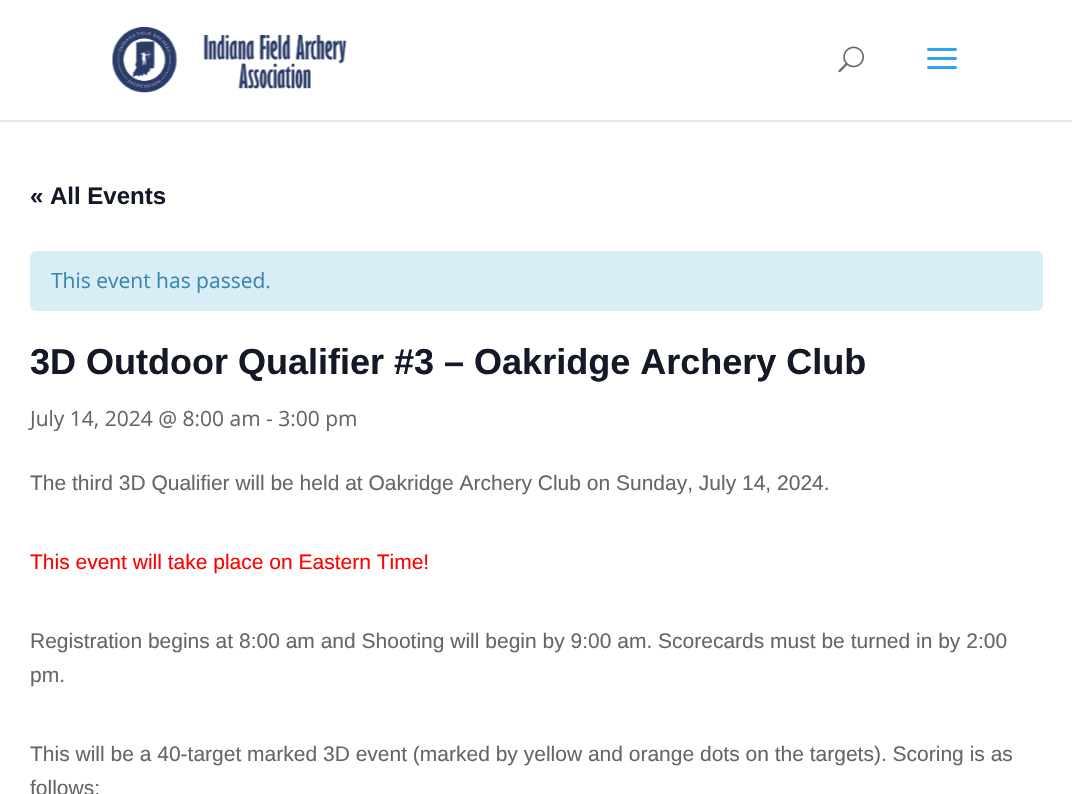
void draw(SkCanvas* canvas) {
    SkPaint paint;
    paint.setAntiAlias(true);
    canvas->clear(0xFFFFFFFF);
    paint.setColor(0xFFE6E6E6);
    canvas->drawPath(SkPathBuilder().moveTo(0, 120).lineTo(0, 122).lineTo(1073, 122).lineTo(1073, 2).lineTo(1072, 2).lineTo(1072, 120).close().detach(), paint);
    canvas->drawImageRect(SkImages::DeferredFromEncodedData(SkData::MakeFromFileName("img1.png")), SkRect::MakeXYWH(112, 27, 235, 66), SkSamplingOptions());
    canvas->drawImageRect(SkImages::DeferredFromEncodedData(SkData::MakeFromFileName("img2.png")), SkRect::MakeXYWH(838, 46, 26, 27), SkSamplingOptions());
    canvas->drawImageRect(SkImages::DeferredFromEncodedData(SkData::MakeFromFileName("img3.png")), SkRect::MakeXYWH(927, 48, 30, 21), SkSamplingOptions());
    SkFont font1(fontMgr->matchFamilyStyle("Liberation Sans", SkFontStyle::Bold()), 24);
    font1.setSubpixel(true);
    paint.setColor(0xFF141827);
    canvas->drawString("« All Events", 30, 204, font1, paint);
    paint.setColor(0xFFD9EDF7);
    canvas->drawRoundRect(SkRect::MakeXYWH(30, 251, 1013, 60), 6, 6, paint);
    SkFont font2(fontMgr->matchFamilyStyle("Open Sans", SkFontStyle::Normal()), 21);
    font2.setSubpixel(true);
    paint.setColor(0xFF3A87AD);
    canvas->drawString("This event has passed.", 51, 288, font2, paint);
    SkFont font3(fontMgr->matchFamilyStyle("Liberation Sans", SkFontStyle::Bold()), 36);
    font3.setSubpixel(true);
    paint.setColor(0xFF141827);
    canvas->drawString("3D Outdoor Qualifier #3 – Oakridge Archery Club", 30, 374, font3, paint);
    paint.setColor(0xFF666666);
    canvas->drawString("July 14, 2024 @ 8:00 am - 3:00 pm", 30, 426, font2, paint);
    SkFont font4(fontMgr->matchFamilyStyle("Liberation Sans", SkFontStyle::Normal()), 21);
    font4.setSubpixel(true);
    canvas->drawString("The third 3D Qualifier will be held at Oakridge Archery Club on Sunday, July 14, 2024.", 30, 490, font4, paint);
    paint.setColor(0xFFFF0000);
    canvas->drawString("This event will take place on Eastern Time!", 30, 569, font4, paint);
    paint.setColor(0xFF666666);
    canvas->drawString("Registration begins at 8:00 am and Shooting will begin by 9:00 am. Scorecards must be turned in by 2:00", 30, 648, font4, paint);
    canvas->drawString("pm.", 30, 682, font4, paint);
    canvas->drawString("This will be a 40-target marked 3D event (marked by yellow and orange dots on the targets). Scoring is as", 30, 761, font4, paint);
    canvas->drawString("follows:", 30, 795, font4, paint);
}
